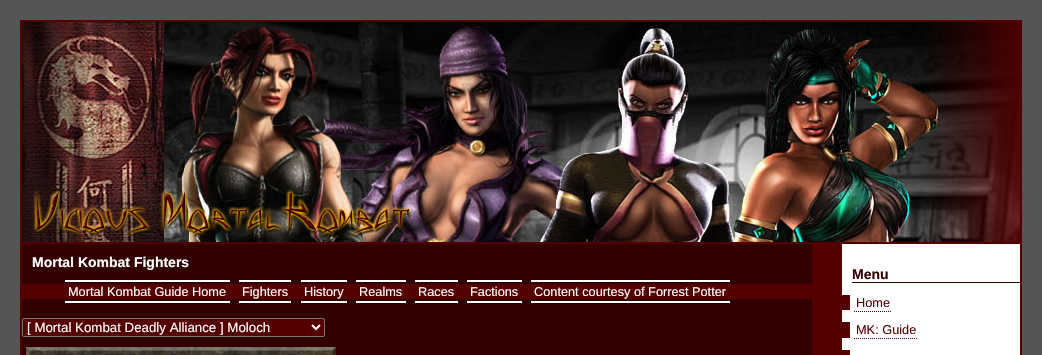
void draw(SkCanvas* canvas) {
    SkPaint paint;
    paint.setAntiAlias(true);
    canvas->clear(0xFF555555);
    canvas->drawImageRect(SkImages::DeferredFromEncodedData(SkData::MakeFromFileName("img1.png")), SkRect::MakeXYWH(22, 22, 998, 220), SkSamplingOptions());
    paint.setStyle(SkPaint::kStroke_Style);
    paint.setStrokeWidth(2);
    paint.setColor(0xFF550000);
    canvas->drawRect(SkRect::MakeXYWH(21, 21, 1000, 222), paint);
    canvas->drawImageRect(SkImages::DeferredFromEncodedData(SkData::MakeFromFileName("img2.png")), SkRect::MakeXYWH(33, 189, 379, 49), SkSamplingOptions());
    paint.setStyle(SkPaint::kFill_Style);
    paint.setColor(0xFF330000);
    canvas->drawRect(SkRect::MakeXYWH(22, 244, 790, 111), paint);
    paint.setColor(0xFF550000);
    canvas->drawRect(SkRect::MakeXYWH(812, 244, 30, 111), paint);
    canvas->drawRect(SkRect::MakeXYWH(20, 244, 2, 111), paint);
    SkFont font1(fontMgr->matchFamilyStyle("Liberation Sans", SkFontStyle::Bold()), 14);
    font1.setSubpixel(true);
    paint.setColor(0xFFFFFFFF);
    canvas->drawString("Mortal Kombat Fighters", 32, 267, font1, paint);
    paint.setColor(0xFF550000);
    canvas->drawRect(SkRect::MakeXYWH(22, 284, 790, 15), paint);
    SkFont font2(fontMgr->matchFamilyStyle("Liberation Sans", SkFontStyle::Normal()), 12.75f);
    font2.setSubpixel(true);
    paint.setColor(0xFFFFFFFF);
    canvas->drawString("Mortal Kombat Guide Home", 68, 296, font2, paint);
    canvas->drawRect(SkRect::MakeXYWH(65, 280, 165, 2), paint);
    canvas->drawRect(SkRect::MakeXYWH(65, 301, 165, 2), paint);
    canvas->drawString("Fighters", 242, 296, font2, paint);
    canvas->drawRect(SkRect::MakeXYWH(239, 280, 52, 2), paint);
    canvas->drawRect(SkRect::MakeXYWH(239, 301, 52, 2), paint);
    canvas->drawString("History", 304, 296, font2, paint);
    canvas->drawRect(SkRect::MakeXYWH(301, 280, 46, 2), paint);
    canvas->drawRect(SkRect::MakeXYWH(301, 301, 46, 2), paint);
    canvas->drawString("Realms", 359, 296, font2, paint);
    canvas->drawRect(SkRect::MakeXYWH(356, 280, 50, 2), paint);
    canvas->drawRect(SkRect::MakeXYWH(356, 301, 50, 2), paint);
    canvas->drawString("Races", 418, 296, font2, paint);
    canvas->drawRect(SkRect::MakeXYWH(415, 280, 43, 2), paint);
    canvas->drawRect(SkRect::MakeXYWH(415, 301, 43, 2), paint);
    canvas->drawString("Factions", 470, 296, font2, paint);
    canvas->drawRect(SkRect::MakeXYWH(467, 280, 55, 2), paint);
    canvas->drawRect(SkRect::MakeXYWH(467, 301, 55, 2), paint);
    canvas->drawString("Content courtesy of Forrest Potter", 534, 296, font2, paint);
    canvas->drawRect(SkRect::MakeXYWH(531, 280, 199, 2), paint);
    canvas->drawRect(SkRect::MakeXYWH(531, 301, 199, 2), paint);
    paint.setColor(0xFF550000);
    canvas->drawRoundRect(SkRect::MakeXYWH(22.5f, 318.5f, 302, 18), 1.5f, 1.5f, paint);
    paint.setStyle(SkPaint::kStroke_Style);
    paint.setStrokeWidth(1);
    paint.setColor(0xFF767676);
    canvas->drawRoundRect(SkRect::MakeXYWH(22.5f, 318.5f, 302, 18), 1.5f, 1.5f, paint);
    paint.setStrokeWidth(2);
    paint.setColor(0xFFFFFFFF);
    canvas->drawPath(SkPathBuilder().moveTo(312, 325).lineTo(316, 329).lineTo(320, 325).detach(), paint);
    SkFont font3(fontMgr->matchFamilyStyle("Liberation Sans", SkFontStyle::Normal()), 13.3f);
    font3.setSubpixel(true);
    paint.setStyle(SkPaint::kFill_Style);
    canvas->drawString("[ Mortal Kombat Deadly Alliance ] Moloch", 27, 332, font3, paint);
    canvas->drawImageRect(SkImages::DeferredFromEncodedData(SkData::MakeFromFileName("img3.png")), SkRect::MakeXYWH(26, 347, 310, 8), SkSamplingOptions());
    canvas->drawRect(SkRect::MakeXYWH(842, 244, 178, 111), paint);
    paint.setColor(0xFF550000);
    canvas->drawRect(SkRect::MakeXYWH(1020, 244, 2, 111), paint);
    paint.setColor(0xFF330000);
    canvas->drawRect(SkRect::MakeXYWH(852, 282, 168, 1), paint);
    canvas->drawString("Menu", 852, 279, font1, paint);
    paint.setColor(0xFF550000);
    canvas->drawRect(SkRect::MakeXYWH(842, 295, 8, 15), paint);
    canvas->drawString("Home", 856, 307, font2, paint);
    paint.setStyle(SkPaint::kStroke_Style);
    paint.setStrokeWidth(1);
    paint.setPathEffect(SkDashPathEffect::Make({{1, 1}}, 0));
    canvas->drawPath(SkPathBuilder().moveTo(854, 311.5f).lineTo(892, 311.5f).detach(), paint);
    paint.setPathEffect(nullptr);
    paint.setStyle(SkPaint::kFill_Style);
    canvas->drawRect(SkRect::MakeXYWH(842, 322, 8, 16), paint);
    canvas->drawString("MK: Guide", 856, 334, font2, paint);
    paint.setStyle(SkPaint::kStroke_Style);
    paint.setPathEffect(SkDashPathEffect::Make({{1, 1}}, 0));
    canvas->drawPath(SkPathBuilder().moveTo(854, 338.5f).lineTo(918, 338.5f).detach(), paint);
    paint.setPathEffect(nullptr);
    paint.setStyle(SkPaint::kFill_Style);
    canvas->drawRect(SkRect::MakeXYWH(842, 350, 8, 5), paint);
}
